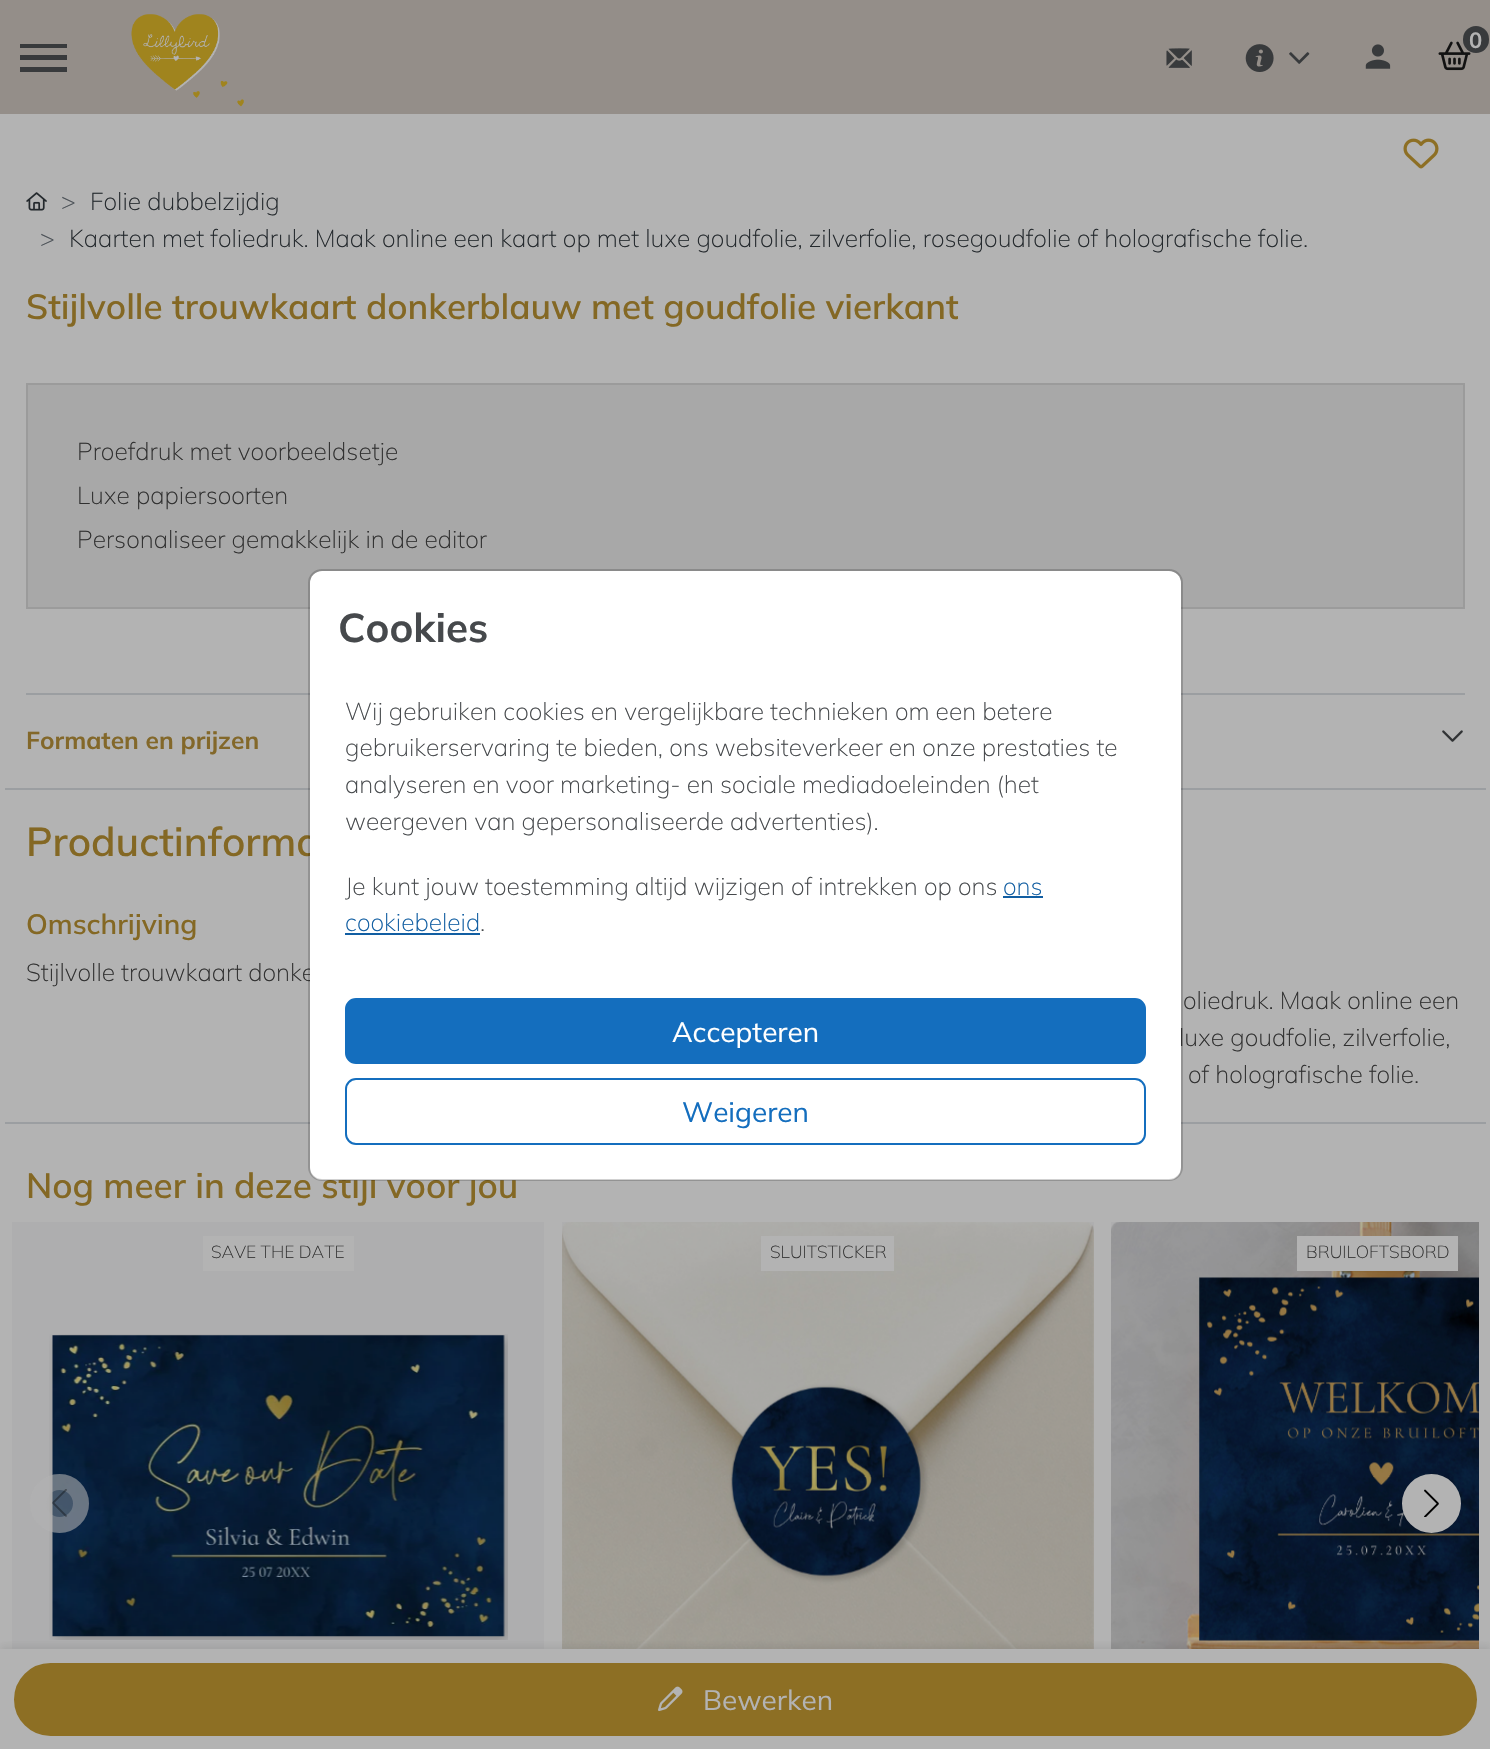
void draw(SkCanvas* canvas) {
    SkPaint paint;
    paint.setAntiAlias(true);
    canvas->clear(0xFFB3B3B3);
    paint.setColor(0xFF948E89);
    canvas->drawRect(SkRect::MakeXYWH(0, 0, 1490, 114), paint);
    canvas->drawImageRect(SkImages::DeferredFromEncodedData(SkData::MakeFromFileName("img1.png")), SkRect::MakeXYWH(131, 14, 113, 93), SkSamplingOptions());
    canvas->drawImageRect(SkImages::DeferredFromEncodedData(SkData::MakeFromFileName("img2.png")), SkRect::MakeXYWH(1438, 41, 33, 30), SkSamplingOptions());
    paint.setColor(0xFF383A3C);
    canvas->drawRoundRect(SkRect::MakeXYWH(1463, 26, 26, 27), 13, 13, paint);
    SkFont font1(fontMgr->matchFamilyStyle("Mulish", SkFontStyle::Bold()), 22);
    font1.setSubpixel(true);
    paint.setColor(0xFFB3B3B3);
    canvas->drawString("0", 1469, 48, font1, paint);
    canvas->drawImageRect(SkImages::DeferredFromEncodedData(SkData::MakeFromFileName("img3.png")), SkRect::MakeXYWH(1365, 44, 26, 25), SkSamplingOptions());
    canvas->drawImageRect(SkImages::DeferredFromEncodedData(SkData::MakeFromFileName("img4.png")), SkRect::MakeXYWH(1166, 48, 26, 20), SkSamplingOptions());
    canvas->drawImageRect(SkImages::DeferredFromEncodedData(SkData::MakeFromFileName("img5.png")), SkRect::MakeXYWH(1245, 44, 29, 28), SkSamplingOptions());
    canvas->drawImageRect(SkImages::DeferredFromEncodedData(SkData::MakeFromFileName("img6.png")), SkRect::MakeXYWH(1289, 52, 21, 12), SkSamplingOptions());
    paint.setColor(0xFF383A3C);
    canvas->drawPath(SkPathBuilder().moveTo(20, 44).lineTo(67, 44).lineTo(67, 48).lineTo(20, 48).close().moveTo(20, 55).lineTo(67, 55).lineTo(67, 60).lineTo(20, 60).close().moveTo(20, 67).lineTo(67, 67).lineTo(67, 72).lineTo(20, 72).close().detach(), paint);
    canvas->drawImageRect(SkImages::DeferredFromEncodedData(SkData::MakeFromFileName("img7.png")), SkRect::MakeXYWH(1403, 138, 36, 31), SkSamplingOptions());
    canvas->drawImageRect(SkImages::DeferredFromEncodedData(SkData::MakeFromFileName("img8.png")), SkRect::MakeXYWH(26, 192, 21, 19), SkSamplingOptions());
    SkFont font2(fontMgr->matchFamilyStyle("Mulish", SkFontStyle(200, SkFontStyle::kNormal_Width, SkFontStyle::kUpright_Slant)), 24.5f);
    font2.setSubpixel(true);
    paint.setColor(0xFF4C5258);
    canvas->drawString(">", 61, 210, font2, paint);
    paint.setColor(0xFF24292D);
    canvas->drawString("Folie dubbelzijdig", 90, 210, font2, paint);
    paint.setColor(0xFF4C5258);
    canvas->drawString(">", 40, 247, font2, paint);
    paint.setColor(0xFF24292D);
    canvas->drawString("Kaarten met foliedruk. Maak online een kaart op met luxe goudfolie, zilverfolie, rosegoudfolie of holografische folie.", 69, 247, font2, paint);
    SkFont font3(fontMgr->matchFamilyStyle("Mulish", SkFontStyle(600, SkFontStyle::kNormal_Width, SkFontStyle::kUpright_Slant)), 35);
    font3.setSubpixel(true);
    paint.setColor(0xFF846824);
    canvas->drawString("Stijlvolle trouwkaart donkerblauw met goudfolie vierkant", 26, 319, font3, paint);
    paint.setColor(0xFFA8A8A8);
    canvas->drawRect(SkRect::MakeXYWH(27, 384, 1437, 224), paint);
    paint.setStyle(SkPaint::kStroke_Style);
    paint.setStrokeWidth(2);
    paint.setColor(0xFF9B9B9B);
    canvas->drawRect(SkRect::MakeXYWH(27, 384, 1437, 224), paint);
    paint.setStyle(SkPaint::kFill_Style);
    paint.setColor(0xFF303030);
    canvas->drawString("Proefdruk met voorbeeldsetje", 77, 460, font2, paint);
    canvas->drawString("Luxe papiersoorten", 77, 504, font2, paint);
    canvas->drawString("Personaliseer gemakkelijk in de editor", 77, 548, font2, paint);
    paint.setColor(0xFF9B9EA1);
    canvas->drawRect(SkRect::MakeXYWH(26, 693, 1439, 2), paint);
    SkFont font4(fontMgr->matchFamilyStyle("Mulish", SkFontStyle::Bold()), 24.5f);
    font4.setSubpixel(true);
    paint.setColor(0xFF83682A);
    canvas->drawString("Formaten en prijzen", 26, 749, font4, paint);
    canvas->drawImageRect(SkImages::DeferredFromEncodedData(SkData::MakeFromFileName("img9.png")), SkRect::MakeXYWH(1442, 730, 21, 12), SkSamplingOptions());
    paint.setColor(0xFF9B9EA1);
    canvas->drawRect(SkRect::MakeXYWH(5, 788, 1481, 2), paint);
    canvas->drawRect(SkRect::MakeXYWH(5, 1122, 1481, 2), paint);
    SkFont font5(fontMgr->matchFamilyStyle("Mulish", SkFontStyle(600, SkFontStyle::kNormal_Width, SkFontStyle::kUpright_Slant)), 40.25f);
    font5.setSubpixel(true);
    paint.setColor(0xFF846824);
    canvas->drawString("Productinforma", 26, 856, font5, paint);
    SkFont font6(fontMgr->matchFamilyStyle("Mulish", SkFontStyle(600, SkFontStyle::kNormal_Width, SkFontStyle::kUpright_Slant)), 28);
    font6.setSubpixel(true);
    canvas->drawString("Omschrijving", 26, 934, font6, paint);
    paint.setColor(0xFF303030);
    canvas->drawString("Stijlvolle trouwkaart donke", 26, 981, font2, paint);
    canvas->drawString("oliedruk. Maak online een", 1183, 1009, font2, paint);
    canvas->drawString("luxe goudfolie, zilverfolie,", 1179, 1046, font2, paint);
    canvas->drawString("of holografische folie.", 1188, 1083, font2, paint);
    paint.setColor(0xFF846824);
    canvas->drawString("Nog meer in deze stijl voor jou", 26, 1198, font3, paint);
    paint.setColor(0xFFAEAEAF);
    canvas->drawRect(SkRect::MakeXYWH(12, 1222, 532, 9), paint);
    canvas->drawRoundRect(SkRect::MakeXYWH(12, 1222, 532, 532), 9, 9, paint);
    paint.setColor(0xFFB3B3B3);
    canvas->drawRect(SkRect::MakeXYWH(203, 1236, 151, 35), paint);
    SkFont font7(fontMgr->matchFamilyStyle("Mulish", SkFontStyle(200, SkFontStyle::kNormal_Width, SkFontStyle::kUpright_Slant)), 17.5f);
    font7.setSubpixel(true);
    paint.setColor(0xFF303030);
    canvas->drawString("SAVE THE DATE", 211, 1258, font7, paint);
    canvas->drawImageRect(SkImages::DeferredFromEncodedData(SkData::MakeFromFileName("img10.png")), SkRect::MakeXYWH(49, 1334, 459, 306), SkSamplingOptions());
    paint.setColor(0xFFAEAEAF);
    canvas->drawRect(SkRect::MakeXYWH(562, 1222, 532, 9), paint);
    canvas->drawImageRect(SkImages::DeferredFromEncodedData(SkData::MakeFromFileName("img11.png")), SkRect::MakeXYWH(562, 1222, 532, 427), SkSamplingOptions());
    paint.setColor(0xFFB3B3B3);
    canvas->drawRect(SkRect::MakeXYWH(761, 1236, 133, 35), paint);
    paint.setColor(0xFF303030);
    canvas->drawString("SLUITSTICKER", 770, 1258, font7, paint);
    paint.setColor(0xFFAEAEAF);
    canvas->drawRect(SkRect::MakeXYWH(1111, 1222, 10, 9), paint);
    canvas->drawImageRect(SkImages::DeferredFromEncodedData(SkData::MakeFromFileName("img12.png")), SkRect::MakeXYWH(1111, 1222, 368, 427), SkSamplingOptions());
    paint.setColor(0xFFB3B3B3);
    canvas->drawRect(SkRect::MakeXYWH(1297, 1236, 161, 35), paint);
    paint.setColor(0xFF303030);
    canvas->drawString("BRUILOFTSBORD", 1306, 1258, font7, paint);
    paint.setColor(0x59B3B3B3);
    canvas->drawCircle(59.5f, 1503.5f, 29.5f, paint);
    paint.setStyle(SkPaint::kStroke_Style);
    paint.setStrokeWidth(16);
    canvas->drawCircle(59.5f, 1503.5f, 21.5f, paint);
    canvas->drawImageRect(SkImages::DeferredFromEncodedData(SkData::MakeFromFileName("img13.png")), SkRect::MakeXYWH(52, 1489, 15, 28), SkSamplingOptions());
    paint.setStyle(SkPaint::kFill_Style);
    paint.setColor(0x12000000);
    paint.setMaskFilter(SkMaskFilter::MakeBlur(kNormal_SkBlurStyle, 3.5f));
    canvas->drawRoundRect(SkRect::MakeXYWH(1402, 1477, 59, 60), 29.5f, 29.5f, paint);
    paint.setMaskFilter(nullptr);
    paint.setColor(0xFFB3B3B3);
    canvas->drawCircle(1431.5f, 1503.5f, 21.5f, paint);
    paint.setStyle(SkPaint::kStroke_Style);
    canvas->drawCircle(1431.5f, 1503.5f, 21.5f, paint);
    canvas->drawImageRect(SkImages::DeferredFromEncodedData(SkData::MakeFromFileName("img14.png")), SkRect::MakeXYWH(1424, 1489, 15, 28), SkSamplingOptions());
    paint.setStyle(SkPaint::kFill_Style);
    paint.setColor(0x12121212);
    paint.setMaskFilter(SkMaskFilter::MakeBlur(kNormal_SkBlurStyle, 3.5f));
    canvas->drawRect(SkRect::MakeXYWH(0, 1645, 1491, 102), paint);
    paint.setMaskFilter(nullptr);
    paint.setColor(0xFFB3B3B3);
    canvas->drawRect(SkRect::MakeXYWH(0, 1649, 1490, 100), paint);
    paint.setColor(0xFF8D6F24);
    canvas->drawRoundRect(SkRect::MakeXYWH(15, 1664, 1461, 71), 35.5f, 35.5f, paint);
    paint.setStyle(SkPaint::kStroke_Style);
    paint.setStrokeWidth(2);
    canvas->drawRoundRect(SkRect::MakeXYWH(15, 1664, 1461, 71), 35.5f, 35.5f, paint);
    canvas->drawImageRect(SkImages::DeferredFromEncodedData(SkData::MakeFromFileName("img15.png")), SkRect::MakeXYWH(658, 1686, 25, 25), SkSamplingOptions());
    SkFont font8(fontMgr->matchFamilyStyle("Mulish", SkFontStyle::Normal()), 28);
    font8.setSubpixel(true);
    paint.setStyle(SkPaint::kFill_Style);
    paint.setColor(0xFFB3B3B3);
    canvas->drawString("Bewerken", 703, 1710, font8, paint);
    paint.setColor(0xFFFFFFFF);
    canvas->drawRoundRect(SkRect::MakeXYWH(310, 571, 871, 609), 12, 12, paint);
    paint.setStyle(SkPaint::kStroke_Style);
    paint.setColor(0x2E000000);
    canvas->drawRoundRect(SkRect::MakeXYWH(309, 570, 873, 610), 13, 13, paint);
    SkFont font9(fontMgr->matchFamilyStyle("Mulish", SkFontStyle::Bold()), 40.25f);
    font9.setSubpixel(true);
    paint.setStyle(SkPaint::kFill_Style);
    paint.setColor(0xFF46494C);
    canvas->drawString("Cookies", 338, 642, font9, paint);
    canvas->drawString("Wij gebruiken cookies en vergelijkbare technieken om een betere", 345, 720, font2, paint);
    canvas->drawString("gebruikerservaring te bieden, ons websiteverkeer en onze prestaties te", 345, 756, font2, paint);
    canvas->drawString("analyseren en voor marketing- en sociale mediadoeleinden (het", 345, 793, font2, paint);
    canvas->drawString("weergeven van gepersonaliseerde advertenties).", 345, 830, font2, paint);
    canvas->drawString("Je kunt jouw toestemming altijd wijzigen of intrekken op ons", 345, 895, font2, paint);
    paint.setColor(0xFF115EA2);
    canvas->drawString("ons", 1003, 895, font2, paint);
    canvas->drawRect(SkRect::MakeXYWH(1003, 896, 40, 2), paint);
    canvas->drawString("cookiebeleid", 345, 931, font2, paint);
    canvas->drawRect(SkRect::MakeXYWH(345, 933, 135, 2), paint);
    paint.setColor(0xFF46494C);
    canvas->drawString(".", 480, 931, font2, paint);
    paint.setColor(0xFF146EBE);
    canvas->drawRoundRect(SkRect::MakeXYWH(346, 999, 799, 64), 10, 10, paint);
    paint.setStyle(SkPaint::kStroke_Style);
    canvas->drawRoundRect(SkRect::MakeXYWH(346, 999, 799, 64), 10, 10, paint);
    paint.setStyle(SkPaint::kFill_Style);
    paint.setColor(0xFFFFFFFF);
    canvas->drawString("Accepteren", 672, 1042, font8, paint);
    paint.setStyle(SkPaint::kStroke_Style);
    paint.setColor(0xFF146EBE);
    canvas->drawRoundRect(SkRect::MakeXYWH(346, 1079, 799, 65), 10, 10, paint);
    paint.setStyle(SkPaint::kFill_Style);
    canvas->drawString("Weigeren", 682, 1122, font8, paint);
}
